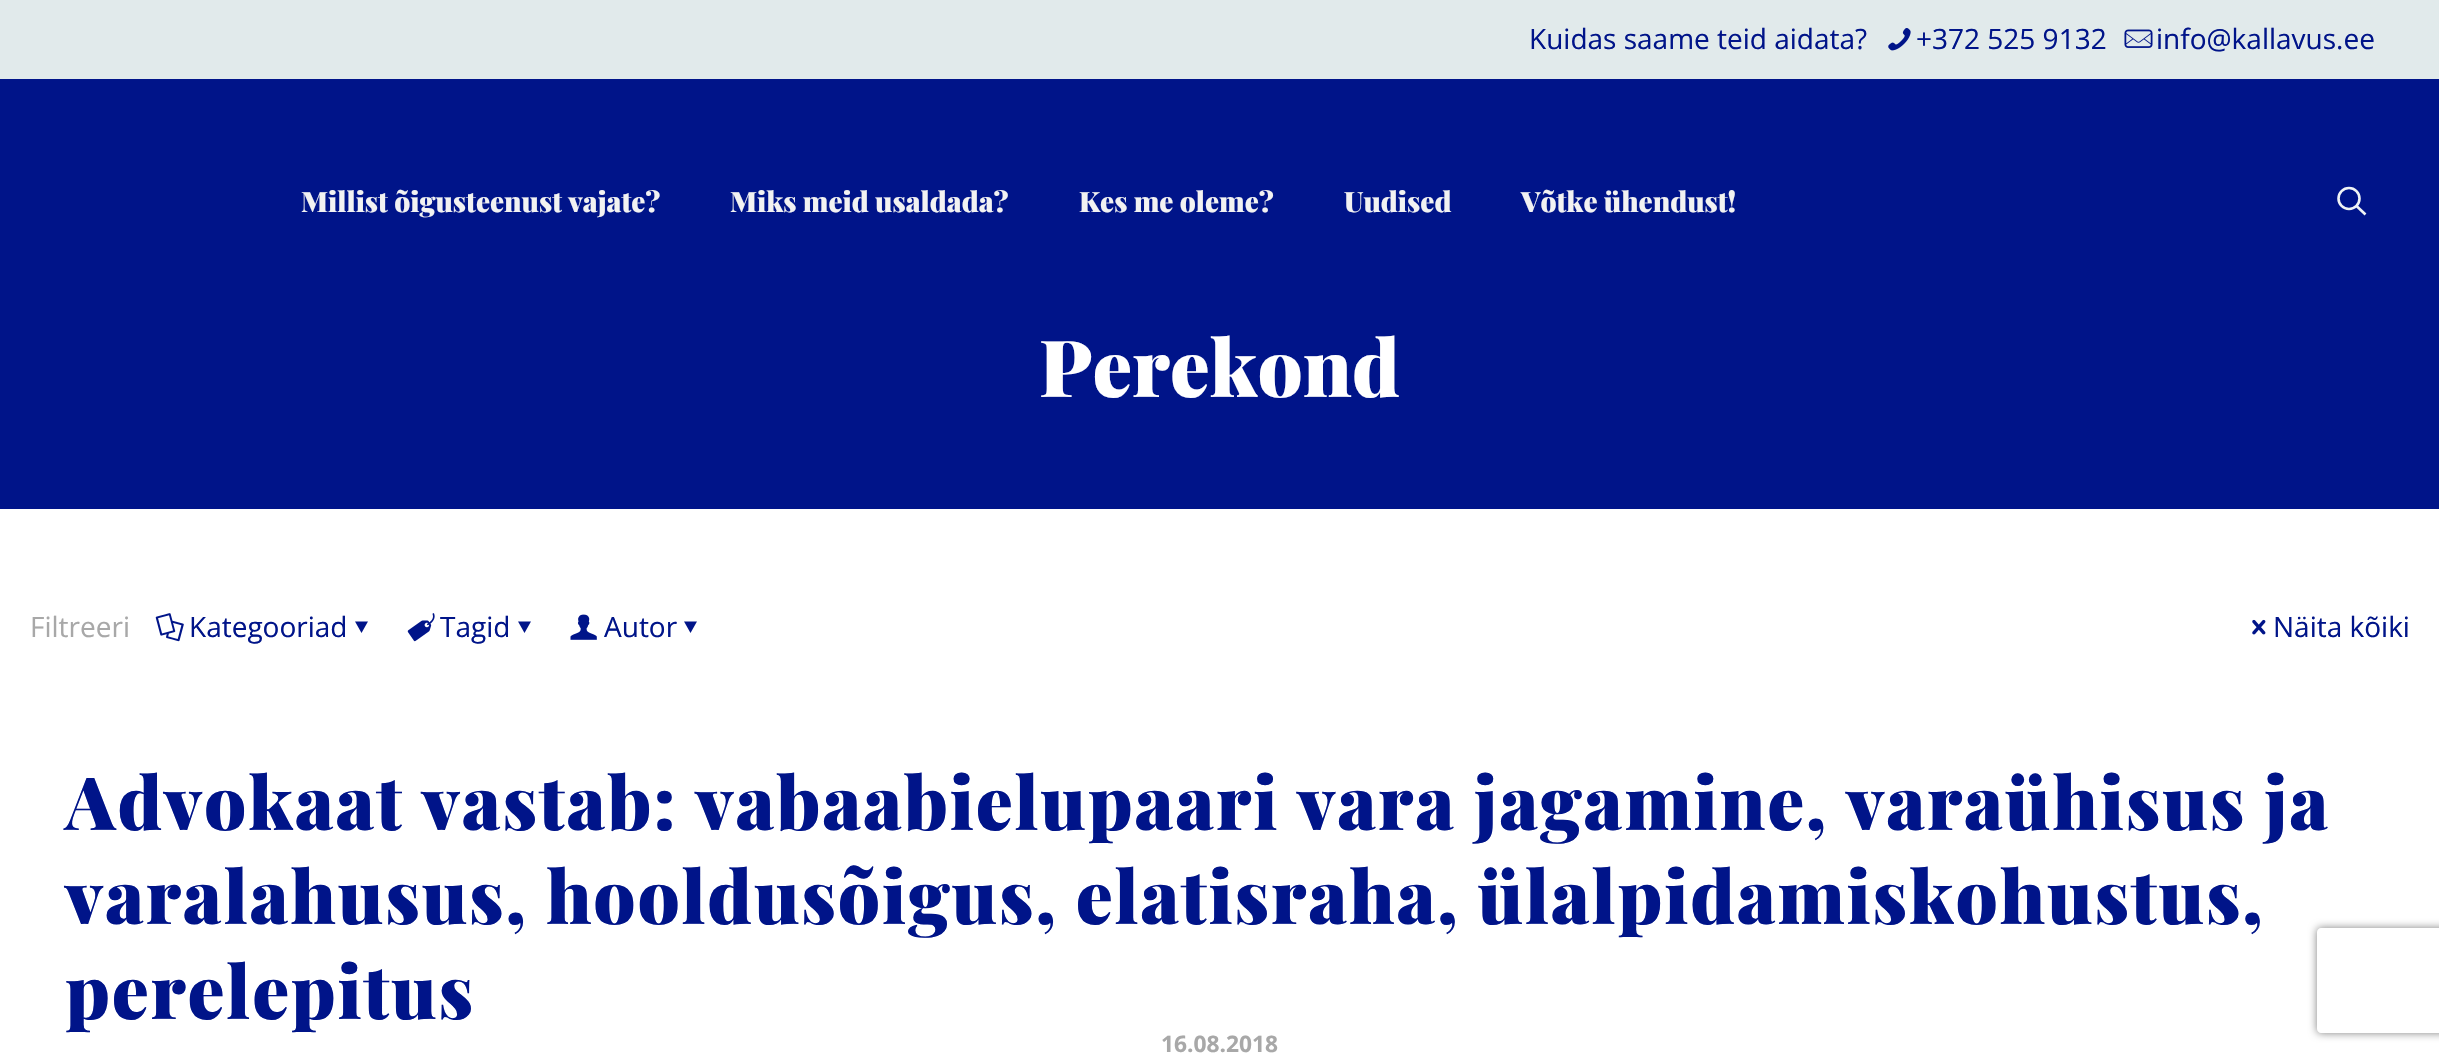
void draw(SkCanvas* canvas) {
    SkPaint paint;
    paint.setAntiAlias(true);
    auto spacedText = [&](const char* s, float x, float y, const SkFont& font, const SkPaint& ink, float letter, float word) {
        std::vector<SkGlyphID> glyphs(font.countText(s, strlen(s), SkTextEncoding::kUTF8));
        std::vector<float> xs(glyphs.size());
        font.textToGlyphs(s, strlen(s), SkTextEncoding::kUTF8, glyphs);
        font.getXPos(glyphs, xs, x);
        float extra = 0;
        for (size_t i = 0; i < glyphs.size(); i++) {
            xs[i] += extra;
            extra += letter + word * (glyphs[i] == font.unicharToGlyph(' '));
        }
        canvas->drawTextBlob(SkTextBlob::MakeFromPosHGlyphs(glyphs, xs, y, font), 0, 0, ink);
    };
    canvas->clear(0xFFFFFFFF);
    paint.setColor(0xFF001489);
    canvas->drawRect(SkRect::MakeXYWH(0, 79, 2439, 430), paint);
    paint.setColor(0xFFE1EAEB);
    canvas->drawRect(SkRect::MakeXYWH(0, 0, 2439, 79), paint);
    SkFont font1(fontMgr->matchFamilyStyle("Open Sans", SkFontStyle::Normal()), 28);
    font1.setSubpixel(true);
    paint.setColor(0xFF001489);
    canvas->drawString("Kuidas saame teid aidata?", 1529, 49, font1, paint);
    canvas->drawImageRect(SkImages::DeferredFromEncodedData(SkData::MakeFromFileName("img1.png")), SkRect::MakeXYWH(1888, 28, 23, 23), SkSamplingOptions());
    canvas->drawString("+372 525 9132", 1916, 49, font1, paint);
    canvas->drawImageRect(SkImages::DeferredFromEncodedData(SkData::MakeFromFileName("img2.png")), SkRect::MakeXYWH(2124, 29, 29, 19), SkSamplingOptions());
    canvas->drawString("info@kallavus.ee", 2156, 49, font1, paint);
    SkFont font2(fontMgr->matchFamilyStyle("Playfair Display", SkFontStyle(900, SkFontStyle::kNormal_Width, SkFontStyle::kUpright_Slant)), 28);
    font2.setSubpixel(true);
    paint.setColor(0xFFF2F2F2);
    canvas->drawString("Millist õigusteenust vajate?", 301, 212, font2, paint);
    canvas->drawString("Miks meid usaldada?", 730, 212, font2, paint);
    canvas->drawString("Kes me oleme?", 1079, 212, font2, paint);
    canvas->drawString("Uudised", 1344, 212, font2, paint);
    canvas->drawString("Võtke ühendust!", 1521, 212, font2, paint);
    paint.setStyle(SkPaint::kStroke_Style);
    paint.setStrokeWidth(2.6f);
    paint.setColor(0xFFF0F4F5);
    canvas->drawCircle(2349, 198.5f, 10.5f, paint);
    canvas->drawPath(SkPathBuilder().moveTo(2356.5f, 206).lineTo(2365.5f, 214.5f).detach(), paint);
    SkFont font3(fontMgr->matchFamilyStyle("Playfair Display", SkFontStyle(900, SkFontStyle::kNormal_Width, SkFontStyle::kUpright_Slant)), 78.75f);
    font3.setSubpixel(true);
    paint.setStyle(SkPaint::kFill_Style);
    paint.setColor(0xFFFFFFFF);
    canvas->drawString("Perekond", 1039, 397, font3, paint);
    paint.setColor(0xFFA8A8A8);
    canvas->drawString("Filtreeri", 30, 637, font1, paint);
    canvas->drawImageRect(SkImages::DeferredFromEncodedData(SkData::MakeFromFileName("img3.png")), SkRect::MakeXYWH(155, 613, 29, 29), SkSamplingOptions());
    paint.setColor(0xFF001489);
    canvas->drawString("Kategooriad", 189, 637, font1, paint);
    canvas->drawPath(SkPathBuilder().moveTo(368, 621.5f).lineTo(361.5f, 633).lineTo(355, 621.5f).close().detach(), paint);
    canvas->drawImageRect(SkImages::DeferredFromEncodedData(SkData::MakeFromFileName("img4.png")), SkRect::MakeXYWH(407, 613, 28, 29), SkSamplingOptions());
    canvas->drawString("Tagid", 440, 637, font1, paint);
    canvas->drawPath(SkPathBuilder().moveTo(531, 621.5f).lineTo(524.5f, 633).lineTo(518, 621.5f).close().detach(), paint);
    canvas->drawImageRect(SkImages::DeferredFromEncodedData(SkData::MakeFromFileName("img5.png")), SkRect::MakeXYWH(570, 614, 27, 26), SkSamplingOptions());
    canvas->drawString("Autor", 604, 637, font1, paint);
    canvas->drawPath(SkPathBuilder().moveTo(697, 621.5f).lineTo(690.5f, 633).lineTo(684, 621.5f).close().detach(), paint);
    canvas->drawImageRect(SkImages::DeferredFromEncodedData(SkData::MakeFromFileName("img6.png")), SkRect::MakeXYWH(2252, 619, 14, 16), SkSamplingOptions());
    canvas->drawString("Näita kõiki", 2273, 637, font1, paint);
    SkFont font4(fontMgr->matchFamilyStyle("Playfair Display", SkFontStyle(900, SkFontStyle::kNormal_Width, SkFontStyle::kUpright_Slant)), 73.5f);
    font4.setSubpixel(true);
    spacedText("Advokaat vastab: vabaabielupaari vara jagamine, varaühisus ja", 65, 830, font4, paint, 1.75f, 0);
    spacedText("varalahusus, hooldusõigus, elatisraha, ülalpidamiskohustus,", 65, 924, font4, paint, 1.75f, 0);
    spacedText("perelepitus", 65, 1019, font4, paint, 1.75f, 0);
    SkFont font5(fontMgr->matchFamilyStyle("Open Sans", SkFontStyle::Bold()), 22.75f);
    font5.setSubpixel(true);
    paint.setColor(0xFFA8A8A8);
    canvas->drawString("16.08.2018", 1161, 1052, font5, paint);
    canvas->save();
    canvas->clipPath(SkPathBuilder(SkPathFillType::kEvenOdd).moveTo(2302, 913).lineTo(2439, 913).lineTo(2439, 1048).lineTo(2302, 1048).close().moveTo(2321, 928).lineTo(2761, 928).cubicTo(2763, 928, 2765, 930, 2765, 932).lineTo(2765, 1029).cubicTo(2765, 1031, 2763, 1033, 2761, 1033).lineTo(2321, 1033).cubicTo(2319, 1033, 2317, 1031, 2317, 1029).lineTo(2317, 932).cubicTo(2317, 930, 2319, 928, 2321, 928).close().detach(), true);
    paint.setColor(0xFF808080);
    paint.setMaskFilter(SkMaskFilter::MakeBlur(kNormal_SkBlurStyle, 4.5f));
    canvas->drawRoundRect(SkRect::MakeXYWH(2317, 928, 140, 105), 4, 4, paint);
    paint.setMaskFilter(nullptr);
    canvas->restore();
}
